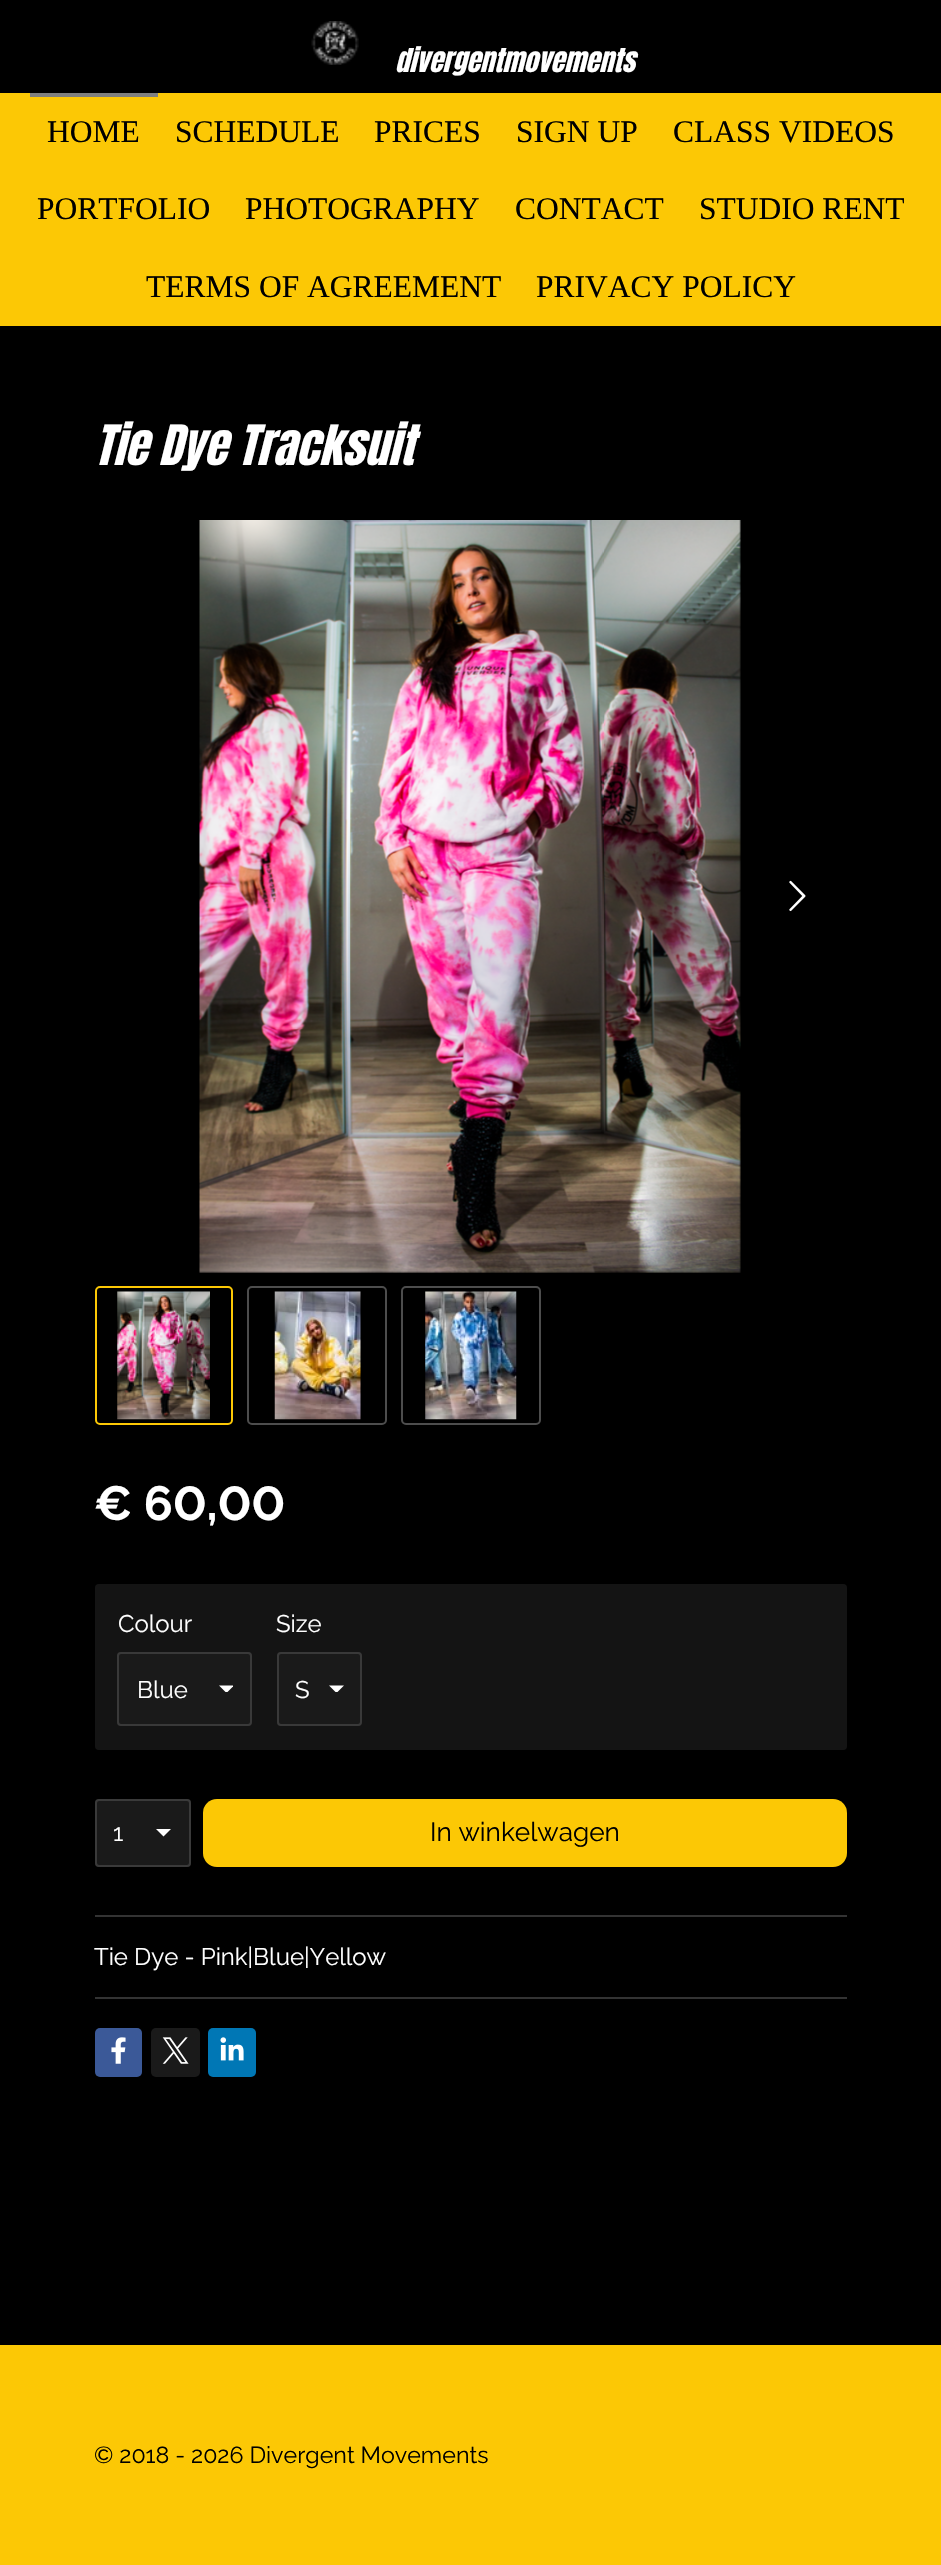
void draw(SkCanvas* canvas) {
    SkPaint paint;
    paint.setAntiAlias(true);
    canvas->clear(0xFF000000);
    canvas->drawImageRect(SkImages::DeferredFromEncodedData(SkData::MakeFromFileName("img1.png")), SkRect::MakeXYWH(311, 21, 48, 44), SkSamplingOptions());
    SkFont font1(fontMgr->matchFamilyStyle("Anton", SkFontStyle::Italic()), 28);
    font1.setSubpixel(true);
    paint.setColor(0xFFFFFFFF);
    canvas->drawString("divergentmovements", 395, 72, font1, paint);
    paint.setColor(0xFFFCC805);
    canvas->drawRect(SkRect::MakeXYWH(0, 93, 941, 233), paint);
    paint.setColor(0xFF808080);
    canvas->drawRect(SkRect::MakeXYWH(30, 93, 128, 4), paint);
    SkFont font2(fontMgr->matchFamilyStyle("Liberation Serif", SkFontStyle::Normal()), 31.5f);
    font2.setSubpixel(true);
    paint.setColor(0xFF000000);
    canvas->drawString("HOME", 47, 142, font2, paint);
    canvas->drawString("SCHEDULE", 175, 142, font2, paint);
    canvas->drawString("PRICES", 374, 142, font2, paint);
    canvas->drawString("SIGN UP", 516, 142, font2, paint);
    canvas->drawString("CLASS VIDEOS", 673, 142, font2, paint);
    canvas->drawString("PORTFOLIO", 37, 219, font2, paint);
    canvas->drawString("PHOTOGRAPHY", 245, 219, font2, paint);
    canvas->drawString("CONTACT", 515, 219, font2, paint);
    canvas->drawString("STUDIO RENT", 699, 219, font2, paint);
    canvas->drawString("TERMS OF AGREEMENT", 146, 297, font2, paint);
    canvas->drawString("PRIVACY POLICY", 536, 297, font2, paint);
    SkFont font3(fontMgr->matchFamilyStyle("Anton", SkFontStyle::Italic()), 47.25f);
    font3.setSubpixel(true);
    paint.setColor(0xFFFFFFFF);
    canvas->drawString("Tie Dye Tracksuit", 94, 465, font3, paint);
    canvas->drawImageRect(SkImages::DeferredFromEncodedData(SkData::MakeFromFileName("img2.png")), SkRect::MakeXYWH(199, 520, 542, 753), SkSamplingOptions());
    canvas->drawImageRect(SkImages::DeferredFromEncodedData(SkData::MakeFromFileName("img3.png")), SkRect::MakeXYWH(789, 880, 17, 32), SkSamplingOptions());
    paint.setStyle(SkPaint::kStroke_Style);
    paint.setStrokeWidth(2);
    paint.setColor(0xFFFCC805);
    canvas->drawRoundRect(SkRect::MakeXYWH(96, 1287, 136, 137), 4, 4, paint);
    canvas->drawImageRect(SkImages::DeferredFromEncodedData(SkData::MakeFromFileName("img4.png")), SkRect::MakeXYWH(117, 1291, 93, 129), SkSamplingOptions());
    paint.setColor(0xFF4D4D4D);
    canvas->drawRoundRect(SkRect::MakeXYWH(248, 1287, 138, 137), 4, 4, paint);
    canvas->drawImageRect(SkImages::DeferredFromEncodedData(SkData::MakeFromFileName("img5.png")), SkRect::MakeXYWH(274, 1291, 87, 129), SkSamplingOptions());
    canvas->drawRoundRect(SkRect::MakeXYWH(402, 1287, 138, 137), 4, 4, paint);
    canvas->drawImageRect(SkImages::DeferredFromEncodedData(SkData::MakeFromFileName("img6.png")), SkRect::MakeXYWH(425, 1291, 92, 129), SkSamplingOptions());
    SkFont font4(fontMgr->matchFamilyStyle("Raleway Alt", SkFontStyle::Bold()), 48);
    font4.setSubpixel(true);
    paint.setStyle(SkPaint::kFill_Style);
    paint.setColor(0xFFFFFFFF);
    canvas->drawString("€ 60,00", 94, 1520, font4, paint);
    paint.setColor(0xFF141414);
    canvas->drawRoundRect(SkRect::MakeXYWH(95, 1584, 752, 166), 4, 4, paint);
    SkFont font5(fontMgr->matchFamilyStyle("Raleway", SkFontStyle::Normal()), 24);
    font5.setSubpixel(true);
    paint.setColor(0xFFFFFFFF);
    canvas->drawString("Colour", 118, 1632, font5, paint);
    paint.setColor(0xFF1A1A1A);
    canvas->drawRoundRect(SkRect::MakeXYWH(117, 1652, 135, 74), 4, 4, paint);
    canvas->save();
    canvas->clipRect(SkRect::MakeXYWH(219, 1685, 14, 7));
    paint.setColor(0xFFFFFFFF);
    canvas->drawPath(SkPathBuilder().moveTo(226.5f, 1693).lineTo(219, 1685.5f).lineTo(234, 1685.5f).close().detach(), paint);
    canvas->restore();
    paint.setStyle(SkPaint::kStroke_Style);
    paint.setColor(0xFF393939);
    canvas->drawRoundRect(SkRect::MakeXYWH(118, 1653, 133, 72), 3, 3, paint);
    paint.setStyle(SkPaint::kFill_Style);
    paint.setColor(0xFFFFFFFF);
    canvas->drawString("Blue", 137, 1698, font5, paint);
    canvas->drawString("Size", 276, 1632, font5, paint);
    paint.setColor(0xFF1A1A1A);
    canvas->drawRoundRect(SkRect::MakeXYWH(277, 1652, 85, 74), 4, 4, paint);
    canvas->save();
    canvas->clipRect(SkRect::MakeXYWH(329, 1685, 16, 7));
    paint.setColor(0xFFFFFFFF);
    canvas->drawPath(SkPathBuilder().moveTo(336.5f, 1693).lineTo(329, 1685.5f).lineTo(344, 1685.5f).close().detach(), paint);
    canvas->restore();
    paint.setStyle(SkPaint::kStroke_Style);
    paint.setColor(0xFF393939);
    canvas->drawRoundRect(SkRect::MakeXYWH(278, 1653, 83, 72), 3, 3, paint);
    paint.setStyle(SkPaint::kFill_Style);
    paint.setColor(0xFFFFFFFF);
    canvas->drawString("S", 295, 1698, font5, paint);
    paint.setColor(0xFF1A1A1A);
    canvas->drawRoundRect(SkRect::MakeXYWH(95, 1799, 96, 68), 4, 4, paint);
    paint.setColor(0xFFFFFFFF);
    canvas->drawPath(SkPathBuilder().moveTo(163.5f, 1836.5f).lineTo(156, 1829).lineTo(171, 1829).close().detach(), paint);
    paint.setStyle(SkPaint::kStroke_Style);
    paint.setColor(0x80595959);
    canvas->drawRoundRect(SkRect::MakeXYWH(96, 1800, 94, 66), 3, 3, paint);
    paint.setStyle(SkPaint::kFill_Style);
    paint.setColor(0xFFFFFFFF);
    canvas->drawString("1", 113, 1841, font5, paint);
    paint.setColor(0xFFFCC805);
    canvas->drawRoundRect(SkRect::MakeXYWH(203, 1799, 644, 68), 14, 14, paint);
    SkFont font6(fontMgr->matchFamilyStyle("Raleway", SkFontStyle::Normal()), 26.25f);
    font6.setSubpixel(true);
    paint.setColor(0xFF000000);
    canvas->drawString("In winkelwagen", 430, 1841, font6, paint);
    paint.setColor(0xFF333333);
    canvas->drawRect(SkRect::MakeXYWH(95, 1915, 752, 2), paint);
    paint.setColor(0xFFFFFFFF);
    canvas->drawString("Tie Dye - Pink|Blue|Yellow", 94, 1965, font5, paint);
    paint.setColor(0xFF333333);
    canvas->drawRect(SkRect::MakeXYWH(95, 1997, 752, 2), paint);
    paint.setColor(0xFF3B5998);
    canvas->drawRoundRect(SkRect::MakeXYWH(95, 2028, 47, 49), 5, 5, paint);
    canvas->drawImageRect(SkImages::DeferredFromEncodedData(SkData::MakeFromFileName("img7.png")), SkRect::MakeXYWH(111, 2037, 15, 27), SkSamplingOptions());
    paint.setColor(0xFF1A1A1A);
    canvas->drawRoundRect(SkRect::MakeXYWH(151, 2028, 49, 49), 5, 5, paint);
    canvas->drawImageRect(SkImages::DeferredFromEncodedData(SkData::MakeFromFileName("img8.png")), SkRect::MakeXYWH(162, 2037, 27, 27), SkSamplingOptions());
    paint.setColor(0xFF0077B5);
    canvas->drawRoundRect(SkRect::MakeXYWH(208, 2028, 48, 49), 5, 5, paint);
    canvas->drawImageRect(SkImages::DeferredFromEncodedData(SkData::MakeFromFileName("img9.png")), SkRect::MakeXYWH(220, 2037, 24, 24), SkSamplingOptions());
    paint.setColor(0xFFFCC805);
    canvas->drawRect(SkRect::MakeXYWH(0, 2345, 941, 220), paint);
    SkFont font7(fontMgr->matchFamilyStyle("Raleway", SkFontStyle::Normal()), 23.25f);
    font7.setSubpixel(true);
    paint.setColor(0xFF000000);
    canvas->drawString("© 2018 - 2026 Divergent Movements", 94, 2463, font7, paint);
}
